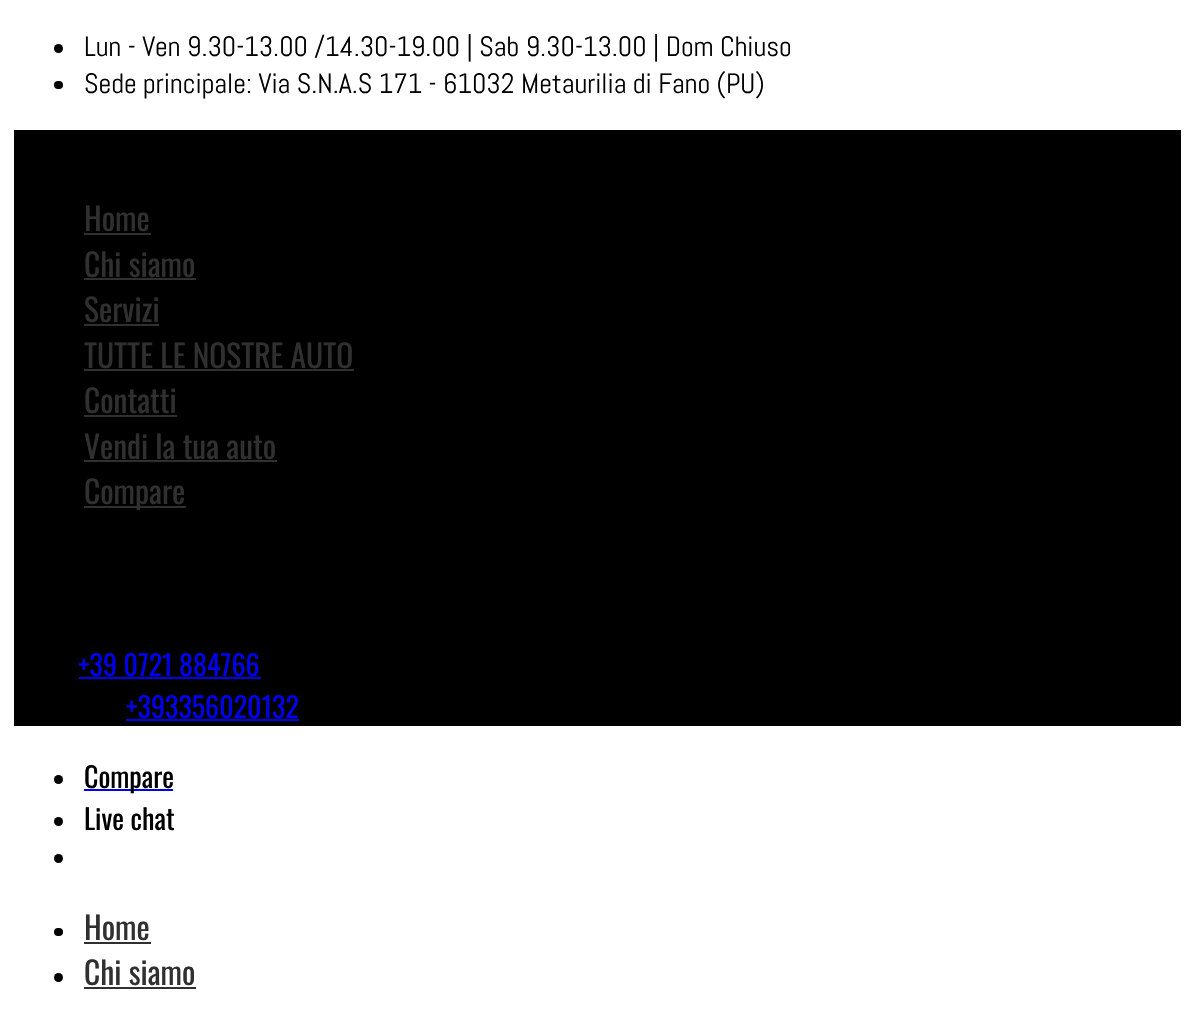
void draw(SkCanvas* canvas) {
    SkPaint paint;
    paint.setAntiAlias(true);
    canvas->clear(0xFFFFFFFF);
    paint.setColor(0xFF000000);
    canvas->drawCircle(58.5f, 48.5f, 4.5f, paint);
    SkFont font1(fontMgr->matchFamilyStyle("Abel", SkFontStyle::Normal()), 28);
    font1.setSubpixel(true);
    canvas->drawString("Lun - Ven 9.30-13.00 /14.30-19.00 | Sab 9.30-13.00 | Dom Chiuso", 84, 56, font1, paint);
    canvas->drawRoundRect(SkRect::MakeXYWH(54, 81, 9, 8), 4, 4, paint);
    canvas->drawString("Sede principale: Via S.N.A.S 171 - 61032 Metaurilia di Fano (PU)", 84, 93, font1, paint);
    canvas->drawRect(SkRect::MakeXYWH(14, 130, 1167, 596), paint);
    SkFont font2(fontMgr->matchFamilyStyle("Oswald", SkFontStyle::Normal()), 31.5f);
    font2.setSubpixel(true);
    paint.setColor(0xFF303030);
    canvas->drawString("Home", 84, 231, font2, paint);
    canvas->drawRect(SkRect::MakeXYWH(84, 233, 67, 2), paint);
    canvas->drawString("Chi siamo", 84, 277, font2, paint);
    canvas->drawRect(SkRect::MakeXYWH(84, 278, 112, 2), paint);
    canvas->drawString("Servizi", 84, 322, font2, paint);
    canvas->drawRect(SkRect::MakeXYWH(84, 324, 75, 2), paint);
    canvas->drawString("TUTTE LE NOSTRE AUTO", 84, 368, font2, paint);
    canvas->drawRect(SkRect::MakeXYWH(84, 369, 270, 2), paint);
    canvas->drawString("Contatti", 84, 413, font2, paint);
    canvas->drawRect(SkRect::MakeXYWH(84, 415, 93, 2), paint);
    canvas->drawString("Vendi la tua auto", 84, 459, font2, paint);
    canvas->drawRect(SkRect::MakeXYWH(84, 460, 193, 2), paint);
    canvas->drawRect(SkRect::MakeXYWH(84, 506, 102, 2), paint);
    canvas->drawString("Compare", 84, 504, font2, paint);
    SkFont font3(fontMgr->matchFamilyStyle("Oswald", SkFontStyle::Normal()), 28);
    font3.setSubpixel(true);
    paint.setColor(0xFF0000EE);
    canvas->drawString("+39 0721 884766", 78, 676, font3, paint);
    canvas->drawRect(SkRect::MakeXYWH(79, 677, 182, 2), paint);
    canvas->drawString("+393356020132", 126, 718, font3, paint);
    canvas->drawRect(SkRect::MakeXYWH(126, 719, 173, 2), paint);
    paint.setColor(0xFF000000);
    canvas->drawCircle(58.5f, 779.5f, 4.5f, paint);
    paint.setColor(0xFF0000EE);
    canvas->drawRect(SkRect::MakeXYWH(84, 789, 89, 2), paint);
    paint.setColor(0xFF000000);
    canvas->drawString("Compare", 84, 788, font3, paint);
    canvas->drawCircle(58.5f, 821.5f, 4.5f, paint);
    canvas->drawString("Live chat", 84, 830, font3, paint);
    canvas->drawCircle(58.5f, 858.5f, 4.5f, paint);
    canvas->drawRoundRect(SkRect::MakeXYWH(54, 928, 9, 8), 4, 4, paint);
    paint.setColor(0xFF303030);
    canvas->drawString("Home", 84, 940, font2, paint);
    canvas->drawRect(SkRect::MakeXYWH(84, 942, 67, 2), paint);
    paint.setColor(0xFF000000);
    canvas->drawCircle(58.5f, 977.5f, 4.5f, paint);
    paint.setColor(0xFF303030);
    canvas->drawString("Chi siamo", 84, 985, font2, paint);
    canvas->drawRect(SkRect::MakeXYWH(84, 987, 112, 2), paint);
}
